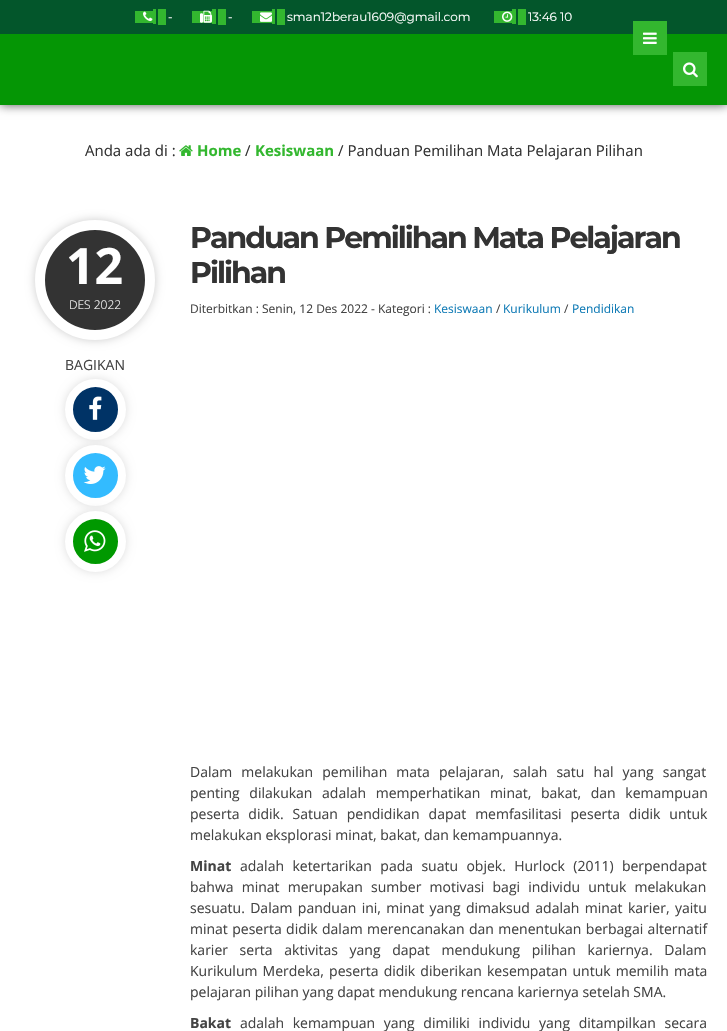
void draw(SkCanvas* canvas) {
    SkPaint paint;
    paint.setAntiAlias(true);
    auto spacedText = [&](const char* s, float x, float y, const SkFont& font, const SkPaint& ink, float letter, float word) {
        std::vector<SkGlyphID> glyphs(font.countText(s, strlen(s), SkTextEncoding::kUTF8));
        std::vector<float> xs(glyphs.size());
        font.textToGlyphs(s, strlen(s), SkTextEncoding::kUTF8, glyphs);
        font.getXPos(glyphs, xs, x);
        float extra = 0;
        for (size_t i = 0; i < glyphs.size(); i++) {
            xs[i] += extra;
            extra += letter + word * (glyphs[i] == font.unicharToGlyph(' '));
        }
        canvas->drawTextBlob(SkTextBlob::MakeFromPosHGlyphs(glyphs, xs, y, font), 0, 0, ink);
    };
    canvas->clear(0xFFFFFFFF);
    paint.setColor(0xFF555555);
    paint.setMaskFilter(SkMaskFilter::MakeBlur(kNormal_SkBlurStyle, 5));
    canvas->drawRect(SkRect::MakeXYWH(0, 0, 727, 105), paint);
    paint.setMaskFilter(nullptr);
    paint.setColor(0xFF059605);
    canvas->drawRect(SkRect::MakeXYWH(0, 34, 727, 71), paint);
    paint.setColor(0xFF03562B);
    canvas->drawRect(SkRect::MakeXYWH(0, 0, 727, 34), paint);
    paint.setColor(0xFF33B72F);
    canvas->drawRect(SkRect::MakeXYWH(135, 11, 18, 12), paint);
    canvas->drawRect(SkRect::MakeXYWH(153, 9, 3, 15), paint);
    canvas->drawRect(SkRect::MakeXYWH(158, 9, 8, 16), paint);
    canvas->drawImageRect(SkImages::DeferredFromEncodedData(SkData::MakeFromFileName("img1.png")), SkRect::MakeXYWH(143, 11, 10, 10), SkSamplingOptions());
    SkFont font1(fontMgr->matchFamilyStyle("Montserrat", SkFontStyle::Normal()), 12);
    font1.setSubpixel(true);
    paint.setColor(0xFFFFFFFF);
    canvas->drawString("-", 168, 21, font1, paint);
    paint.setColor(0xFF33B72F);
    canvas->drawRect(SkRect::MakeXYWH(192, 11, 20, 12), paint);
    canvas->drawRect(SkRect::MakeXYWH(212, 9, 4, 15), paint);
    canvas->drawRect(SkRect::MakeXYWH(218, 9, 8, 16), paint);
    canvas->drawImageRect(SkImages::DeferredFromEncodedData(SkData::MakeFromFileName("img2.png")), SkRect::MakeXYWH(200, 10, 12, 13), SkSamplingOptions());
    paint.setColor(0xFFFFFFFF);
    canvas->drawString("-", 228, 21, font1, paint);
    paint.setColor(0xFF33B72F);
    canvas->drawRect(SkRect::MakeXYWH(252, 11, 20, 12), paint);
    canvas->drawRect(SkRect::MakeXYWH(272, 9, 3, 15), paint);
    canvas->drawRect(SkRect::MakeXYWH(277, 9, 8, 16), paint);
    canvas->drawImageRect(SkImages::DeferredFromEncodedData(SkData::MakeFromFileName("img3.png")), SkRect::MakeXYWH(260, 12, 12, 10), SkSamplingOptions());
    paint.setColor(0xFFFFFFFF);
    canvas->drawString("sman12berau1609@gmail.com", 287, 21, font1, paint);
    paint.setColor(0xFF33B72F);
    canvas->drawRect(SkRect::MakeXYWH(494, 11, 18, 12), paint);
    canvas->drawRect(SkRect::MakeXYWH(512, 9, 4, 15), paint);
    canvas->drawRect(SkRect::MakeXYWH(518, 9, 8, 16), paint);
    canvas->drawImageRect(SkImages::DeferredFromEncodedData(SkData::MakeFromFileName("img4.png")), SkRect::MakeXYWH(502, 11, 11, 11), SkSamplingOptions());
    paint.setColor(0xFFFFFFFF);
    canvas->drawString("13:46 10", 528, 21, font1, paint);
    paint.setColor(0xFF33B72F);
    canvas->drawRect(SkRect::MakeXYWH(633, 21, 34, 34), paint);
    canvas->drawImageRect(SkImages::DeferredFromEncodedData(SkData::MakeFromFileName("img5.png")), SkRect::MakeXYWH(643, 32, 14, 12), SkSamplingOptions());
    canvas->drawRect(SkRect::MakeXYWH(673, 52, 34, 34), paint);
    canvas->drawImageRect(SkImages::DeferredFromEncodedData(SkData::MakeFromFileName("img6.png")), SkRect::MakeXYWH(683, 62, 15, 16), SkSamplingOptions());
    SkFont font2(fontMgr->matchFamilyStyle("Open Sans", SkFontStyle::Normal()), 15);
    font2.setSubpixel(true);
    paint.setColor(0xFF333333);
    canvas->drawString("Anda ada di :", 85, 156, font2, paint);
    canvas->drawImageRect(SkImages::DeferredFromEncodedData(SkData::MakeFromFileName("img7.png")), SkRect::MakeXYWH(179, 145, 14, 11), SkSamplingOptions());
    SkFont font3(fontMgr->matchFamilyStyle("Open Sans", SkFontStyle::Bold()), 15);
    font3.setSubpixel(true);
    paint.setColor(0xFF33B72F);
    canvas->drawString("Home", 197, 156, font3, paint);
    paint.setColor(0xFF333333);
    canvas->drawString("/", 245, 156, font2, paint);
    paint.setColor(0xFF33B72F);
    canvas->drawString("Kesiswaan", 255, 156, font3, paint);
    paint.setColor(0xFF333333);
    canvas->drawString("/ Panduan Pemilihan Mata Pelajaran Pilihan", 338, 156, font2, paint);
    paint.setColor(0xFFCCCCCC);
    paint.setMaskFilter(SkMaskFilter::MakeBlur(kNormal_SkBlurStyle, 5));
    canvas->drawRoundRect(SkRect::MakeXYWH(35, 220, 120, 120), 60, 60, paint);
    paint.setMaskFilter(nullptr);
    paint.setColor(0xFF333333);
    canvas->drawCircle(95, 280, 55, paint);
    paint.setStyle(SkPaint::kStroke_Style);
    paint.setStrokeWidth(10);
    paint.setColor(0xFFFFFFFF);
    canvas->drawCircle(95, 280, 55, paint);
    SkFont font4(fontMgr->matchFamilyStyle("Open Sans", SkFontStyle::Bold()), 50);
    font4.setSubpixel(true);
    paint.setStyle(SkPaint::kFill_Style);
    canvas->drawString("12", 66, 284, font4, paint);
    SkFont font5(fontMgr->matchFamilyStyle("Open Sans", SkFontStyle(300, SkFontStyle::kNormal_Width, SkFontStyle::kUpright_Slant)), 12);
    font5.setSubpixel(true);
    canvas->drawString("DES 2022", 69, 309, font5, paint);
    SkFont font6(fontMgr->matchFamilyStyle("Montserrat", SkFontStyle::Bold()), 30);
    font6.setSubpixel(true);
    paint.setColor(0xFF333333);
    spacedText("Panduan Pemilihan Mata Pelajaran", 190, 248, font6, paint, -2, 0);
    spacedText("Pilihan", 190, 283, font6, paint, -2, 0);
    SkFont font7(fontMgr->matchFamilyStyle("Open Sans", SkFontStyle::Normal()), 12);
    font7.setSubpixel(true);
    paint.setColor(0xFF444444);
    canvas->drawString("Diterbitkan : Senin, 12 Des 2022 - Kategori :", 190, 313, font7, paint);
    paint.setColor(0xFF107BB6);
    canvas->drawString("Kesiswaan", 434, 313, font7, paint);
    paint.setColor(0xFF444444);
    canvas->drawString("/", 496, 313, font7, paint);
    paint.setColor(0xFF107BB6);
    canvas->drawString("Kurikulum", 503, 313, font7, paint);
    paint.setColor(0xFF444444);
    canvas->drawString("/", 564, 313, font7, paint);
    paint.setColor(0xFF107BB6);
    canvas->drawString("Pendidikan", 572, 313, font7, paint);
    paint.setColor(0xFFDDDDDD);
    paint.setMaskFilter(SkMaskFilter::MakeBlur(kNormal_SkBlurStyle, 5));
    canvas->drawRoundRect(SkRect::MakeXYWH(65, 379, 61, 61), 30.5f, 30.5f, paint);
    paint.setMaskFilter(nullptr);
    SkFont font8(fontMgr->matchFamilyStyle("Open Sans", SkFontStyle::Normal()), 14);
    font8.setSubpixel(true);
    paint.setColor(0xFF444444);
    canvas->drawString("BAGIKAN", 65, 370, font8, paint);
    paint.setColor(0xFF003366);
    canvas->drawCircle(95.5f, 409.5f, 26.5f, paint);
    paint.setStyle(SkPaint::kStroke_Style);
    paint.setStrokeWidth(8);
    paint.setColor(0xFFFFFFFF);
    canvas->drawCircle(95.5f, 409.5f, 26.5f, paint);
    canvas->drawImageRect(SkImages::DeferredFromEncodedData(SkData::MakeFromFileName("img8.png")), SkRect::MakeXYWH(89, 396, 13, 24), SkSamplingOptions());
    paint.setStyle(SkPaint::kFill_Style);
    paint.setColor(0xFFDDDDDD);
    paint.setMaskFilter(SkMaskFilter::MakeBlur(kNormal_SkBlurStyle, 5));
    canvas->drawRoundRect(SkRect::MakeXYWH(65, 445, 61, 61), 30.5f, 30.5f, paint);
    paint.setMaskFilter(nullptr);
    paint.setColor(0xFF33BBFF);
    canvas->drawCircle(95.5f, 475.5f, 26.5f, paint);
    paint.setStyle(SkPaint::kStroke_Style);
    paint.setColor(0xFFFFFFFF);
    canvas->drawCircle(95.5f, 475.5f, 26.5f, paint);
    canvas->drawImageRect(SkImages::DeferredFromEncodedData(SkData::MakeFromFileName("img9.png")), SkRect::MakeXYWH(83, 466, 23, 18), SkSamplingOptions());
    paint.setStyle(SkPaint::kFill_Style);
    paint.setColor(0xFFDDDDDD);
    paint.setMaskFilter(SkMaskFilter::MakeBlur(kNormal_SkBlurStyle, 5));
    canvas->drawRoundRect(SkRect::MakeXYWH(65, 511, 61, 61), 30.5f, 30.5f, paint);
    paint.setMaskFilter(nullptr);
    paint.setColor(0xFF009900);
    canvas->drawCircle(95.5f, 541.5f, 26.5f, paint);
    paint.setStyle(SkPaint::kStroke_Style);
    paint.setColor(0xFFFFFFFF);
    canvas->drawCircle(95.5f, 541.5f, 26.5f, paint);
    canvas->drawImageRect(SkImages::DeferredFromEncodedData(SkData::MakeFromFileName("img10.png")), SkRect::MakeXYWH(84, 530, 22, 22), SkSamplingOptions());
    paint.setStyle(SkPaint::kFill_Style);
    paint.setColor(0xFF444444);
    spacedText("Dalam melakukan pemilihan mata pelajaran, salah satu hal yang sangat", 190, 777, font8, paint, 0, 5.5f);
    spacedText("penting dilakukan adalah memperhatikan minat, bakat, dan kemampuan", 190, 798, font8, paint, 0, 6);
    spacedText("peserta didik. Satuan pendidikan dapat memfasilitasi peserta didik untuk", 190, 819, font8, paint, 0, 5.25f);
    canvas->drawString("melakukan eksplorasi minat, bakat, dan kemampuannya.", 190, 840, font8, paint);
    SkFont font9(fontMgr->matchFamilyStyle("Open Sans", SkFontStyle::Bold()), 14);
    font9.setSubpixel(true);
    canvas->drawString("Minat", 190, 871, font9, paint);
    spacedText("adalah ketertarikan pada suatu objek. Hurlock (2011) berpendapat", 240, 871, font8, paint, 0, 4.75f);
    spacedText("bahwa minat merupakan sumber motivasi bagi individu untuk melakukan", 190, 892, font8, paint, 0, 4.5f);
    spacedText("sesuatu. Dalam panduan ini, minat yang dimaksud adalah minat karier, yaitu", 190, 913, font8, paint, 0, 1.75f);
    spacedText("minat peserta didik dalam merencanakan dan menentukan berbagai alternatif", 190, 934, font8, paint, 0, 0.75f);
    spacedText("karier serta aktivitas yang dapat mendukung pilihan kariernya. Dalam", 190, 955, font8, paint, 0, 8);
    spacedText("Kurikulum Merdeka, peserta didik diberikan kesempatan untuk memilih mata", 190, 976, font8, paint, 0, 1.5f);
    canvas->drawString("pelajaran pilihan yang dapat mendukung rencana kariernya setelah SMA.", 190, 997, font8, paint);
    canvas->drawString("Bakat", 190, 1028, font9, paint);
    spacedText("adalah kemampuan yang dimiliki individu yang ditampilkan secara", 240, 1028, font8, paint, 0, 5);
}
